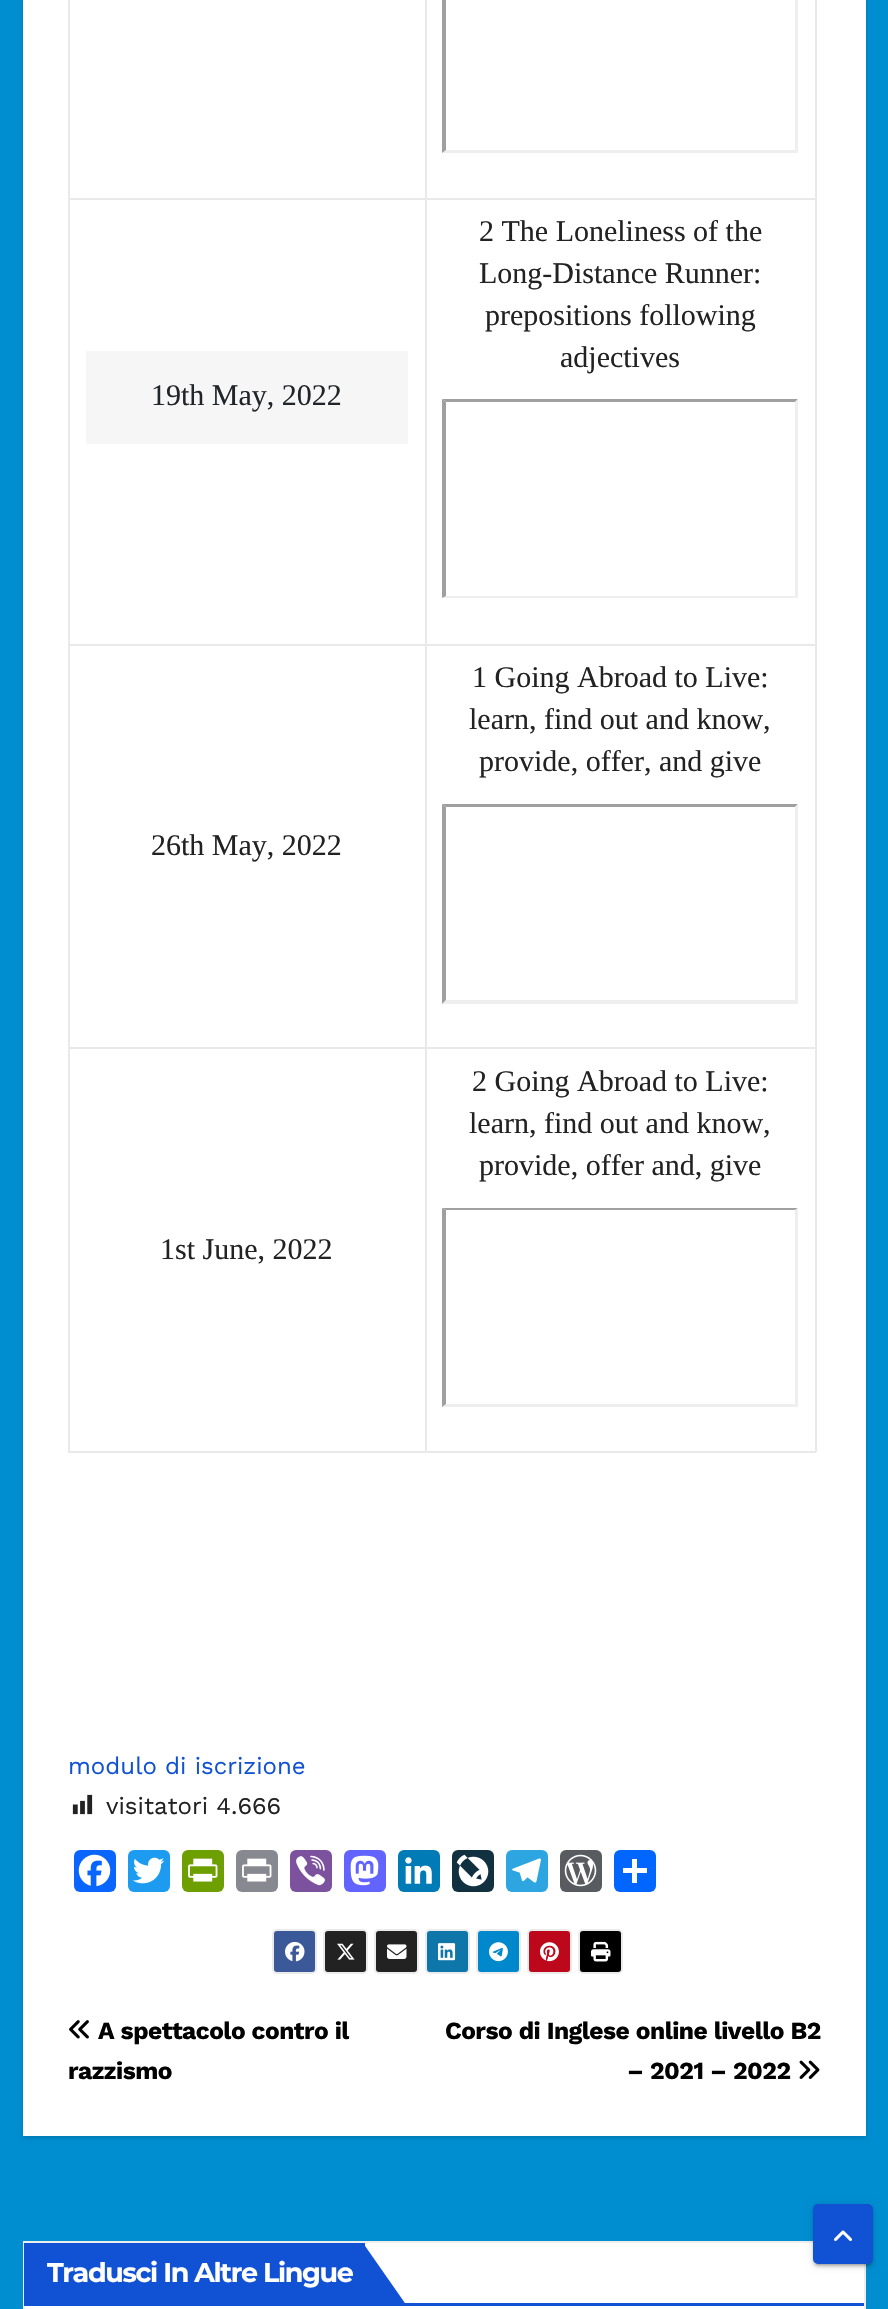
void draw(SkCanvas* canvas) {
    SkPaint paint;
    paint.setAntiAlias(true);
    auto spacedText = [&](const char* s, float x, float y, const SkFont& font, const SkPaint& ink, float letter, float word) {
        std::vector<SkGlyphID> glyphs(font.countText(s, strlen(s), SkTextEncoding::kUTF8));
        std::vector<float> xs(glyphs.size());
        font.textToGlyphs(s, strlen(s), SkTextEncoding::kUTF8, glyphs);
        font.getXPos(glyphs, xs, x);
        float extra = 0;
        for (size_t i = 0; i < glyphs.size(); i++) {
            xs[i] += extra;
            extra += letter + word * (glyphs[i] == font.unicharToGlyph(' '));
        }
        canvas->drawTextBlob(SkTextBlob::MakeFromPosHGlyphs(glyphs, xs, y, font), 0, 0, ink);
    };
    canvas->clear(0xFF008ED1);
    paint.setColor(0x26000000);
    paint.setMaskFilter(SkMaskFilter::MakeBlur(kNormal_SkBlurStyle, 2));
    canvas->drawRect(SkRect::MakeXYWH(23, -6, 843, 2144), paint);
    paint.setMaskFilter(nullptr);
    paint.setColor(0xFFFFFFFF);
    canvas->drawRect(SkRect::MakeXYWH(23, 0, 843, 2136), paint);
    paint.setColor(0xFFE9E9E9);
    canvas->drawRect(SkRect::MakeXYWH(815, 0, 2, 1452), paint);
    canvas->drawRect(SkRect::MakeXYWH(68, 1451, 748, 2), paint);
    canvas->drawRect(SkRect::MakeXYWH(68, 0, 2, 1452), paint);
    canvas->drawRect(SkRect::MakeXYWH(425, 198, 391, 2), paint);
    canvas->drawRect(SkRect::MakeXYWH(425, 644, 391, 2), paint);
    canvas->drawRect(SkRect::MakeXYWH(425, 1047, 391, 2), paint);
    canvas->drawRect(SkRect::MakeXYWH(425, 1047, 2, 405), paint);
    canvas->drawRect(SkRect::MakeXYWH(68, 1047, 358, 2), paint);
    canvas->drawRect(SkRect::MakeXYWH(425, 644, 2, 405), paint);
    canvas->drawRect(SkRect::MakeXYWH(68, 644, 358, 2), paint);
    canvas->drawRect(SkRect::MakeXYWH(425, 198, 2, 447), paint);
    canvas->drawRect(SkRect::MakeXYWH(68, 198, 358, 2), paint);
    canvas->drawRect(SkRect::MakeXYWH(425, 0, 2, 200), paint);
    paint.setColor(0xFFEEEEEE);
    canvas->drawPath(SkPathBuilder().moveTo(798, -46).lineTo(798, 153).lineTo(795, 150).lineTo(795, -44).close().detach(), paint);
    canvas->drawPath(SkPathBuilder().moveTo(798, 153).lineTo(442, 153).lineTo(446, 150).lineTo(795, 150).close().detach(), paint);
    paint.setColor(0xFF9F9F9F);
    canvas->drawPath(SkPathBuilder().moveTo(442, 153).lineTo(442, -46).lineTo(446, -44).lineTo(446, 150).close().detach(), paint);
    SkFont font1(fontMgr->matchFamilyStyle("Liberation Serif", SkFontStyle::Normal()), 30);
    font1.setSubpixel(true);
    paint.setColor(0xFF222222);
    canvas->drawString("2 The Loneliness of the", 479, 241, font1, paint);
    canvas->drawString("Long-Distance Runner:", 479, 283, font1, paint);
    canvas->drawString("prepositions following", 485, 325, font1, paint);
    canvas->drawString("adjectives", 560, 367, font1, paint);
    paint.setColor(0xFF9F9F9F);
    canvas->drawPath(SkPathBuilder().moveTo(442, 399).lineTo(798, 399).lineTo(795, 402).lineTo(446, 402).close().detach(), paint);
    paint.setColor(0xFFEEEEEE);
    canvas->drawPath(SkPathBuilder().moveTo(798, 399).lineTo(798, 598).lineTo(795, 596).lineTo(795, 402).close().detach(), paint);
    canvas->drawPath(SkPathBuilder().moveTo(798, 598).lineTo(442, 598).lineTo(446, 596).lineTo(795, 596).close().detach(), paint);
    paint.setColor(0xFF9F9F9F);
    canvas->drawPath(SkPathBuilder().moveTo(442, 598).lineTo(442, 399).lineTo(446, 402).lineTo(446, 596).close().detach(), paint);
    paint.setColor(0xFFF6F6F6);
    canvas->drawRect(SkRect::MakeXYWH(86, 351, 322, 93), paint);
    paint.setColor(0xFF212529);
    canvas->drawString("19th May, 2022", 151, 405, font1, paint);
    paint.setColor(0xFF222222);
    canvas->drawString("1 Going Abroad to Live:", 472, 687, font1, paint);
    canvas->drawString("learn, find out and know,", 469, 729, font1, paint);
    canvas->drawString("provide, offer, and give", 479, 771, font1, paint);
    paint.setColor(0xFF9F9F9F);
    canvas->drawPath(SkPathBuilder().moveTo(442, 804).lineTo(798, 804).lineTo(795, 807).lineTo(446, 807).close().detach(), paint);
    paint.setColor(0xFFEEEEEE);
    canvas->drawPath(SkPathBuilder().moveTo(798, 804).lineTo(798, 1004).lineTo(795, 1000).lineTo(795, 807).close().detach(), paint);
    canvas->drawPath(SkPathBuilder().moveTo(798, 1004).lineTo(442, 1004).lineTo(446, 1000).lineTo(795, 1000).close().detach(), paint);
    paint.setColor(0xFF9F9F9F);
    canvas->drawPath(SkPathBuilder().moveTo(442, 1004).lineTo(442, 804).lineTo(446, 807).lineTo(446, 1000).close().detach(), paint);
    paint.setColor(0xFF222222);
    canvas->drawString("26th May, 2022", 151, 855, font1, paint);
    canvas->drawString("2 Going Abroad to Live:", 472, 1091, font1, paint);
    canvas->drawString("learn, find out and know,", 469, 1133, font1, paint);
    canvas->drawString("provide, offer and, give", 479, 1175, font1, paint);
    paint.setColor(0xFF9F9F9F);
    canvas->drawPath(SkPathBuilder().moveTo(442, 1208).lineTo(798, 1208).lineTo(795, 1210).lineTo(446, 1210).close().detach(), paint);
    paint.setColor(0xFFEEEEEE);
    canvas->drawPath(SkPathBuilder().moveTo(798, 1208).lineTo(798, 1407).lineTo(795, 1404).lineTo(795, 1210).close().detach(), paint);
    canvas->drawPath(SkPathBuilder().moveTo(798, 1407).lineTo(442, 1407).lineTo(446, 1404).lineTo(795, 1404).close().detach(), paint);
    paint.setColor(0xFF9F9F9F);
    canvas->drawPath(SkPathBuilder().moveTo(442, 1407).lineTo(442, 1208).lineTo(446, 1210).lineTo(446, 1404).close().detach(), paint);
    paint.setColor(0xFF222222);
    canvas->drawString("1st June, 2022", 160, 1259, font1, paint);
    SkFont font2(fontMgr->matchFamilyStyle("Work Sans", SkFontStyle::Normal()), 24);
    font2.setSubpixel(true);
    paint.setColor(0xFF1151D3);
    canvas->drawString("modulo di iscrizione", 68, 1774, font2, paint);
    canvas->drawImageRect(SkImages::DeferredFromEncodedData(SkData::MakeFromFileName("img1.png")), SkRect::MakeXYWH(72, 1794, 21, 21), SkSamplingOptions());
    paint.setColor(0xFF222222);
    canvas->drawString("visitatori 4.666", 106, 1814, font2, paint);
    paint.setColor(0xFF0866FF);
    canvas->drawRoundRect(SkRect::MakeXYWH(74, 1850, 42, 42), 6, 6, paint);
    canvas->drawImageRect(SkImages::DeferredFromEncodedData(SkData::MakeFromFileName("img2.png")), SkRect::MakeXYWH(78, 1854, 33, 33), SkSamplingOptions());
    paint.setColor(0xFF1D9BF0);
    canvas->drawRoundRect(SkRect::MakeXYWH(128, 1850, 42, 42), 6, 6, paint);
    canvas->drawImageRect(SkImages::DeferredFromEncodedData(SkData::MakeFromFileName("img3.png")), SkRect::MakeXYWH(133, 1857, 32, 27), SkSamplingOptions());
    paint.setColor(0xFF6D9F00);
    canvas->drawRoundRect(SkRect::MakeXYWH(182, 1850, 42, 42), 6, 6, paint);
    canvas->drawImageRect(SkImages::DeferredFromEncodedData(SkData::MakeFromFileName("img4.png")), SkRect::MakeXYWH(188, 1858, 30, 24), SkSamplingOptions());
    paint.setColor(0xFF888990);
    canvas->drawRoundRect(SkRect::MakeXYWH(236, 1850, 42, 42), 6, 6, paint);
    canvas->drawImageRect(SkImages::DeferredFromEncodedData(SkData::MakeFromFileName("img5.png")), SkRect::MakeXYWH(242, 1858, 30, 24), SkSamplingOptions());
    paint.setColor(0xFF7C529E);
    canvas->drawRoundRect(SkRect::MakeXYWH(290, 1850, 42, 42), 6, 6, paint);
    canvas->drawImageRect(SkImages::DeferredFromEncodedData(SkData::MakeFromFileName("img6.png")), SkRect::MakeXYWH(296, 1855, 29, 31), SkSamplingOptions());
    paint.setColor(0xFF6364FF);
    canvas->drawRoundRect(SkRect::MakeXYWH(344, 1850, 42, 42), 6, 6, paint);
    canvas->drawImageRect(SkImages::DeferredFromEncodedData(SkData::MakeFromFileName("img7.png")), SkRect::MakeXYWH(350, 1855, 29, 31), SkSamplingOptions());
    paint.setColor(0xFF007BB5);
    canvas->drawRoundRect(SkRect::MakeXYWH(398, 1850, 42, 42), 6, 6, paint);
    canvas->drawImageRect(SkImages::DeferredFromEncodedData(SkData::MakeFromFileName("img8.png")), SkRect::MakeXYWH(405, 1857, 27, 27), SkSamplingOptions());
    paint.setColor(0xFF113140);
    canvas->drawRoundRect(SkRect::MakeXYWH(452, 1850, 42, 42), 6, 6, paint);
    canvas->drawImageRect(SkImages::DeferredFromEncodedData(SkData::MakeFromFileName("img9.png")), SkRect::MakeXYWH(456, 1854, 33, 33), SkSamplingOptions());
    paint.setColor(0xFF2CA5E0);
    canvas->drawRoundRect(SkRect::MakeXYWH(506, 1850, 42, 42), 6, 6, paint);
    canvas->drawImageRect(SkImages::DeferredFromEncodedData(SkData::MakeFromFileName("img10.png")), SkRect::MakeXYWH(512, 1858, 29, 25), SkSamplingOptions());
    paint.setColor(0xFF585C60);
    canvas->drawRoundRect(SkRect::MakeXYWH(560, 1850, 42, 42), 6, 6, paint);
    canvas->drawImageRect(SkImages::DeferredFromEncodedData(SkData::MakeFromFileName("img11.png")), SkRect::MakeXYWH(564, 1854, 33, 33), SkSamplingOptions());
    paint.setColor(0xFF0166FF);
    canvas->drawRoundRect(SkRect::MakeXYWH(614, 1850, 42, 42), 6, 6, paint);
    paint.setColor(0xFFFFFFFF);
    canvas->drawRect(SkRect::MakeXYWH(632, 1859, 5, 24), paint);
    canvas->drawRect(SkRect::MakeXYWH(623, 1868, 24, 5), paint);
    paint.setColor(0xFF3B5998);
    canvas->drawRoundRect(SkRect::MakeXYWH(273, 1930, 43, 43), 4, 4, paint);
    paint.setStyle(SkPaint::kStroke_Style);
    paint.setStrokeWidth(2);
    paint.setColor(0xFFEBEBEB);
    canvas->drawRoundRect(SkRect::MakeXYWH(273, 1930, 43, 43), 4, 4, paint);
    canvas->drawImageRect(SkImages::DeferredFromEncodedData(SkData::MakeFromFileName("img12.png")), SkRect::MakeXYWH(285, 1941, 20, 21), SkSamplingOptions());
    paint.setStyle(SkPaint::kFill_Style);
    paint.setColor(0xFF222222);
    canvas->drawRoundRect(SkRect::MakeXYWH(324, 1930, 43, 43), 4, 4, paint);
    paint.setStyle(SkPaint::kStroke_Style);
    paint.setColor(0xFFEBEBEB);
    canvas->drawRoundRect(SkRect::MakeXYWH(324, 1930, 43, 43), 4, 4, paint);
    canvas->drawImageRect(SkImages::DeferredFromEncodedData(SkData::MakeFromFileName("img13.png")), SkRect::MakeXYWH(337, 1943, 18, 17), SkSamplingOptions());
    paint.setStyle(SkPaint::kFill_Style);
    paint.setColor(0xFF222222);
    canvas->drawRoundRect(SkRect::MakeXYWH(375, 1930, 43, 43), 4, 4, paint);
    paint.setStyle(SkPaint::kStroke_Style);
    paint.setColor(0xFFEBEBEB);
    canvas->drawRoundRect(SkRect::MakeXYWH(375, 1930, 43, 43), 4, 4, paint);
    canvas->drawImageRect(SkImages::DeferredFromEncodedData(SkData::MakeFromFileName("img14.png")), SkRect::MakeXYWH(387, 1944, 20, 15), SkSamplingOptions());
    paint.setStyle(SkPaint::kFill_Style);
    paint.setColor(0xFF0E76A8);
    canvas->drawRoundRect(SkRect::MakeXYWH(426, 1930, 43, 43), 4, 4, paint);
    paint.setStyle(SkPaint::kStroke_Style);
    paint.setColor(0xFFEBEBEB);
    canvas->drawRoundRect(SkRect::MakeXYWH(426, 1930, 43, 43), 4, 4, paint);
    canvas->drawImageRect(SkImages::DeferredFromEncodedData(SkData::MakeFromFileName("img15.png")), SkRect::MakeXYWH(438, 1943, 18, 18), SkSamplingOptions());
    paint.setStyle(SkPaint::kFill_Style);
    paint.setColor(0xFF0088CC);
    canvas->drawRoundRect(SkRect::MakeXYWH(477, 1930, 43, 43), 4, 4, paint);
    paint.setStyle(SkPaint::kStroke_Style);
    paint.setColor(0xFFEBEBEB);
    canvas->drawRoundRect(SkRect::MakeXYWH(477, 1930, 43, 43), 4, 4, paint);
    canvas->drawImageRect(SkImages::DeferredFromEncodedData(SkData::MakeFromFileName("img16.png")), SkRect::MakeXYWH(489, 1942, 19, 20), SkSamplingOptions());
    paint.setStyle(SkPaint::kFill_Style);
    paint.setColor(0xFFBD081C);
    canvas->drawRoundRect(SkRect::MakeXYWH(528, 1930, 43, 43), 4, 4, paint);
    paint.setStyle(SkPaint::kStroke_Style);
    paint.setColor(0xFFEBEBEB);
    canvas->drawRoundRect(SkRect::MakeXYWH(528, 1930, 43, 43), 4, 4, paint);
    canvas->drawImageRect(SkImages::DeferredFromEncodedData(SkData::MakeFromFileName("img17.png")), SkRect::MakeXYWH(540, 1942, 19, 20), SkSamplingOptions());
    paint.setStyle(SkPaint::kFill_Style);
    paint.setColor(0xFF000000);
    canvas->drawRoundRect(SkRect::MakeXYWH(579, 1930, 43, 43), 4, 4, paint);
    paint.setStyle(SkPaint::kStroke_Style);
    paint.setColor(0xFFEBEBEB);
    canvas->drawRoundRect(SkRect::MakeXYWH(579, 1930, 43, 43), 4, 4, paint);
    canvas->drawImageRect(SkImages::DeferredFromEncodedData(SkData::MakeFromFileName("img18.png")), SkRect::MakeXYWH(591, 1941, 20, 21), SkSamplingOptions());
    canvas->drawImageRect(SkImages::DeferredFromEncodedData(SkData::MakeFromFileName("img19.png")), SkRect::MakeXYWH(69, 2020, 20, 19), SkSamplingOptions());
    SkFont font3(fontMgr->matchFamilyStyle("Work Sans", SkFontStyle::Bold()), 24.5f);
    font3.setSubpixel(true);
    paint.setStyle(SkPaint::kFill_Style);
    paint.setColor(0xFF000000);
    spacedText("A spettacolo contro il", 98, 2039, font3, paint, -0.5f, 0);
    spacedText("razzismo", 68, 2079, font3, paint, -0.5f, 0);
    spacedText("Corso di Inglese online livello B2", 445, 2039, font3, paint, -0.5f, 0);
    spacedText("– 2021 – 2022", 627, 2079, font3, paint, -0.5f, 0);
    canvas->drawImageRect(SkImages::DeferredFromEncodedData(SkData::MakeFromFileName("img20.png")), SkRect::MakeXYWH(799, 2060, 21, 19), SkSamplingOptions());
    paint.setColor(0xFFFFFFFF);
    canvas->drawRect(SkRect::MakeXYWH(24, 2242, 841, 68), paint);
    paint.setStyle(SkPaint::kStroke_Style);
    paint.setColor(0xFFEEEEEE);
    canvas->drawRect(SkRect::MakeXYWH(24, 2242, 841, 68), paint);
    paint.setStyle(SkPaint::kFill_Style);
    paint.setColor(0xFF1151D3);
    canvas->drawRect(SkRect::MakeXYWH(24, 2303, 840, 3), paint);
    canvas->drawRect(SkRect::MakeXYWH(24, 2243, 341, 60), paint);
    SkFont font4(fontMgr->matchFamilyStyle("Montserrat", SkFontStyle::Bold()), 27);
    font4.setSubpixel(true);
    paint.setColor(0xFFFFFFFF);
    spacedText("Tradusci In Altre Lingue", 47, 2282, font4, paint, -1.35f, 0);
    paint.setColor(0xFF1151D3);
    canvas->drawPath(SkPathBuilder().moveTo(363, 2306).lineTo(363, 2243).lineTo(407, 2306).close().detach(), paint);
    paint.setColor(0x1F000000);
    paint.setMaskFilter(SkMaskFilter::MakeBlur(kNormal_SkBlurStyle, 4));
    canvas->drawRoundRect(SkRect::MakeXYWH(813, 2205, 60, 60), 5, 5, paint);
    paint.setMaskFilter(nullptr);
    paint.setColor(0x33000000);
    paint.setMaskFilter(SkMaskFilter::MakeBlur(kNormal_SkBlurStyle, 1));
    canvas->drawRoundRect(SkRect::MakeXYWH(816, 2211, 54, 54), 1.5f, 1.5f, paint);
    paint.setMaskFilter(nullptr);
    paint.setColor(0x24000000);
    paint.setMaskFilter(SkMaskFilter::MakeBlur(kNormal_SkBlurStyle, 1.5f));
    canvas->drawRoundRect(SkRect::MakeXYWH(813, 2207, 60, 60), 5, 5, paint);
    paint.setMaskFilter(nullptr);
    paint.setColor(0xFF1151D3);
    canvas->drawRoundRect(SkRect::MakeXYWH(814.5f, 2205.5f, 57, 57), 3.5f, 3.5f, paint);
    paint.setStyle(SkPaint::kStroke_Style);
    paint.setStrokeWidth(3);
    canvas->drawRoundRect(SkRect::MakeXYWH(814.5f, 2205.5f, 57, 57), 3.5f, 3.5f, paint);
    canvas->drawImageRect(SkImages::DeferredFromEncodedData(SkData::MakeFromFileName("img21.png")), SkRect::MakeXYWH(834, 2230, 18, 11), SkSamplingOptions());
}
